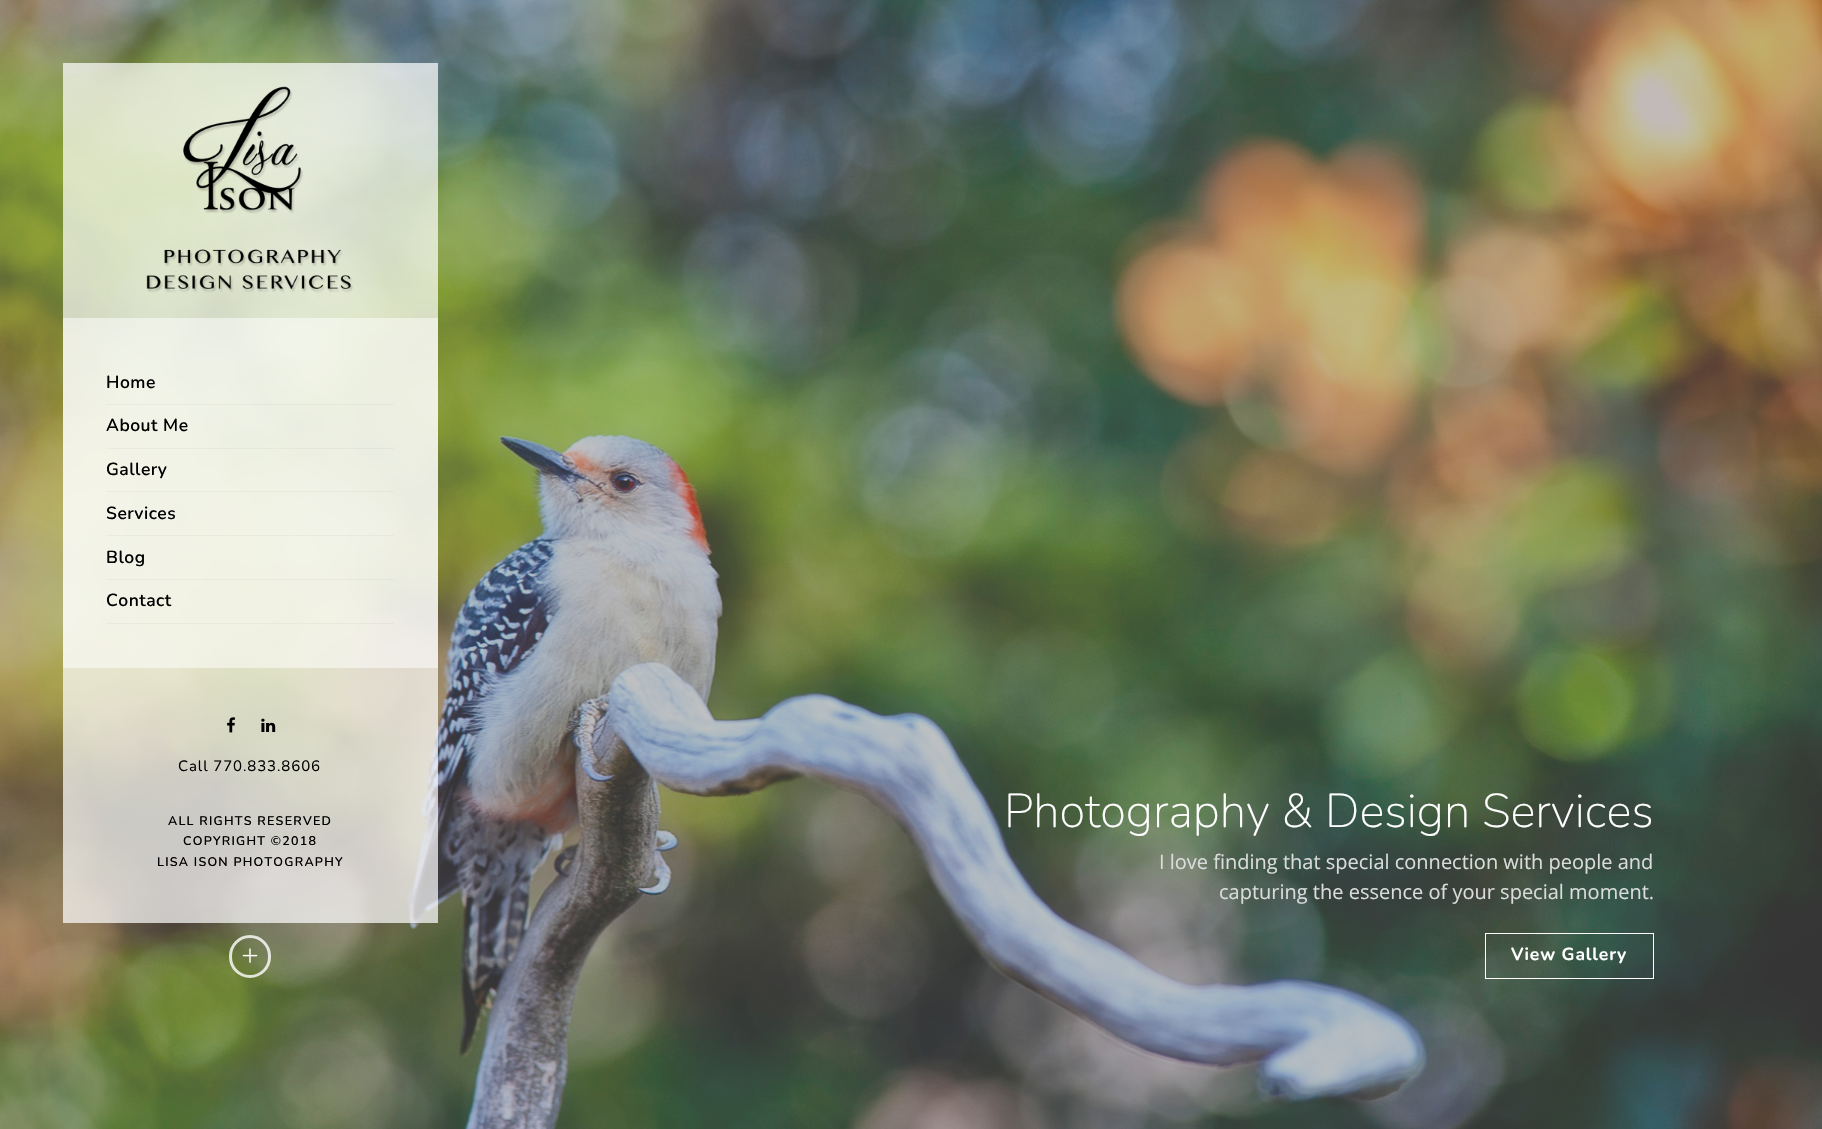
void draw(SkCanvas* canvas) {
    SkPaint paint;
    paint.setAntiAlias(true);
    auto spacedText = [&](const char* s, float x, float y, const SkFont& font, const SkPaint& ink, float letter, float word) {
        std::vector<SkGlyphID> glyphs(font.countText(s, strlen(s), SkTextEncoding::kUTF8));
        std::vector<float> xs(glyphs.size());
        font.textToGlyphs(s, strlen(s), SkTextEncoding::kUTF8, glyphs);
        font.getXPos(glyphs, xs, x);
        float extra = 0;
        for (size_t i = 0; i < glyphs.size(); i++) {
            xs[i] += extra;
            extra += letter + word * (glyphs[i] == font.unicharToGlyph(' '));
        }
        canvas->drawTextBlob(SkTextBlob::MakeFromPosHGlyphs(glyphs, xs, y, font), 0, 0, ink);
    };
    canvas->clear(0xFF777777);
    canvas->drawImageRect(SkImages::DeferredFromEncodedData(SkData::MakeFromFileName("img1.png")), SkRect::MakeXYWH(0, 0, 1822, 1129), SkSamplingOptions());
    paint.setColor(0xB3FFFFFF);
    canvas->drawRect(SkRect::MakeXYWH(63, 63, 375, 860), paint);
    canvas->drawImageRect(SkImages::DeferredFromEncodedData(SkData::MakeFromFileName("img2.png")), SkRect::MakeXYWH(146, 86, 207, 207), SkSamplingOptions());
    paint.setColor(0x80FFFFFF);
    canvas->drawRect(SkRect::MakeXYWH(63, 318, 375, 350), paint);
    paint.setColor(0x08000000);
    canvas->drawRect(SkRect::MakeXYWH(106, 404, 288, 1), paint);
    SkFont font1(fontMgr->matchFamilyStyle("Nunito", SkFontStyle(600, SkFontStyle::kNormal_Width, SkFontStyle::kUpright_Slant)), 17.5f);
    font1.setSubpixel(true);
    paint.setColor(0xFF000000);
    spacedText("Home", 106, 388, font1, paint, 0.5f, 0);
    paint.setColor(0x08000000);
    canvas->drawRect(SkRect::MakeXYWH(106, 448, 288, 1), paint);
    paint.setColor(0xFF000000);
    spacedText("About Me", 106, 431, font1, paint, 0.5f, 0);
    paint.setColor(0x08000000);
    canvas->drawRect(SkRect::MakeXYWH(106, 491, 288, 1), paint);
    paint.setColor(0xFF000000);
    spacedText("Gallery", 106, 475, font1, paint, 0.5f, 0);
    paint.setColor(0x08000000);
    canvas->drawRect(SkRect::MakeXYWH(106, 535, 288, 1), paint);
    paint.setColor(0xFF000000);
    spacedText("Services", 106, 519, font1, paint, 0.5f, 0);
    paint.setColor(0x08000000);
    canvas->drawRect(SkRect::MakeXYWH(106, 579, 288, 1), paint);
    paint.setColor(0xFF000000);
    spacedText("Blog", 106, 563, font1, paint, 0.5f, 0);
    paint.setColor(0x08000000);
    canvas->drawRect(SkRect::MakeXYWH(106, 623, 288, 1), paint);
    paint.setColor(0xFF000000);
    spacedText("Contact", 106, 606, font1, paint, 0.5f, 0);
    canvas->drawImageRect(SkImages::DeferredFromEncodedData(SkData::MakeFromFileName("img3.png")), SkRect::MakeXYWH(227, 717, 8, 16), SkSamplingOptions());
    canvas->drawImageRect(SkImages::DeferredFromEncodedData(SkData::MakeFromFileName("img4.png")), SkRect::MakeXYWH(261, 718, 15, 14), SkSamplingOptions());
    SkFont font2(fontMgr->matchFamilyStyle("Nunito", SkFontStyle::Normal()), 15);
    font2.setSubpixel(true);
    spacedText("Call 770.833.8606", 178, 771, font2, paint, 0.9f, 0);
    SkFont font3(fontMgr->matchFamilyStyle("Nunito", SkFontStyle(600, SkFontStyle::kNormal_Width, SkFontStyle::kUpright_Slant)), 12.5f);
    font3.setSubpixel(true);
    spacedText("ALL RIGHTS RESERVED", 168, 825, font3, paint, 1.25f, 0);
    spacedText("COPYRIGHT ©2018", 183, 845, font3, paint, 1.25f, 0);
    spacedText("LISA ISON PHOTOGRAPHY", 157, 866, font3, paint, 1.25f, 0);
    paint.setStyle(SkPaint::kStroke_Style);
    paint.setStrokeWidth(3);
    paint.setColor(0xCCFFFFFF);
    canvas->drawRoundRect(SkRect::MakeXYWH(230.5f, 936.5f, 39, 40), 19.5f, 19.5f, paint);
    canvas->drawImageRect(SkImages::DeferredFromEncodedData(SkData::MakeFromFileName("img5.png")), SkRect::MakeXYWH(242, 948, 16, 15), SkSamplingOptions());
    SkFont font4(fontMgr->matchFamilyStyle("Nunito", SkFontStyle(200, SkFontStyle::kNormal_Width, SkFontStyle::kUpright_Slant)), 47.5f);
    font4.setSubpixel(true);
    paint.setStyle(SkPaint::kFill_Style);
    paint.setColor(0xFFFFFFFF);
    canvas->drawString("Photography & Design Services", 1004, 827, font4, paint);
    SkFont font5(fontMgr->matchFamilyStyle("Open Sans", SkFontStyle::Normal()), 20);
    font5.setSubpixel(true);
    paint.setColor(0xFFD9DCDA);
    canvas->drawString("I love finding that special connection with people and", 1159, 869, font5, paint);
    canvas->drawString("capturing the essence of your special moment.", 1219, 899, font5, paint);
    paint.setStyle(SkPaint::kStroke_Style);
    paint.setStrokeWidth(1);
    paint.setColor(0xFFFFFFFF);
    canvas->drawRect(SkRect::MakeXYWH(1485.5f, 933.5f, 168, 45), paint);
    SkFont font6(fontMgr->matchFamilyStyle("Nunito", SkFontStyle::Bold()), 17.5f);
    font6.setSubpixel(true);
    paint.setStyle(SkPaint::kFill_Style);
    spacedText("View Gallery", 1511, 960, font6, paint, 0.9f, 0);
}
